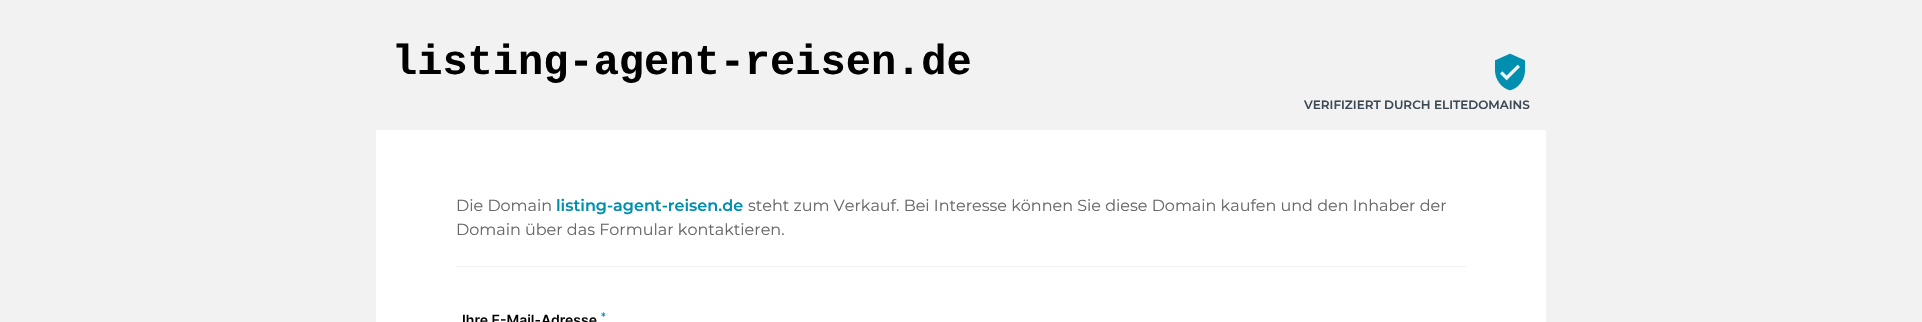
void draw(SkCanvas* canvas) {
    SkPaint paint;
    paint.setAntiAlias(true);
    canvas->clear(0xFFF2F2F2);
    SkFont font1(fontMgr->matchFamilyStyle("Liberation Mono", SkFontStyle::Bold()), 42);
    font1.setSubpixel(true);
    paint.setColor(0xFF000000);
    canvas->drawString("listing-agent-reisen.de", 392, 74, font1, paint);
    canvas->drawImageRect(SkImages::DeferredFromEncodedData(SkData::MakeFromFileName("img1.png")), SkRect::MakeXYWH(1495, 53, 30, 38), SkSamplingOptions());
    SkFont font2(fontMgr->matchFamilyStyle("Montserrat", SkFontStyle(600, SkFontStyle::kNormal_Width, SkFontStyle::kUpright_Slant)), 12);
    font2.setSubpixel(true);
    paint.setColor(0xFF3C4853);
    canvas->drawString("VERIFIZIERT DURCH ELITEDOMAINS", 1304, 109, font2, paint);
    paint.setColor(0xFFFFFFFF);
    canvas->drawRect(SkRect::MakeXYWH(376, 130, 1170, 192), paint);
    SkFont font3(fontMgr->matchFamilyStyle("Montserrat", SkFontStyle::Normal()), 16);
    font3.setSubpixel(true);
    paint.setColor(0xFF686868);
    canvas->drawString("Die Domain", 456, 211, font3, paint);
    SkFont font4(fontMgr->matchFamilyStyle("Montserrat", SkFontStyle(600, SkFontStyle::kNormal_Width, SkFontStyle::kUpright_Slant)), 16);
    font4.setSubpixel(true);
    paint.setColor(0xFF008FAF);
    canvas->drawString("listing-agent-reisen.de", 556, 211, font4, paint);
    paint.setColor(0xFF686868);
    canvas->drawString("steht zum Verkauf. Bei Interesse können Sie diese Domain kaufen und den Inhaber der", 748, 211, font3, paint);
    canvas->drawString("Domain über das Formular kontaktieren.", 456, 235, font3, paint);
    paint.setColor(0xFFF2F2F2);
    canvas->drawRect(SkRect::MakeXYWH(456, 266, 1010, 1), paint);
    canvas->drawImageRect(SkImages::DeferredFromEncodedData(SkData::MakeFromFileName("img2.png")), SkRect::MakeXYWH(463, 312, 143, 10), SkSamplingOptions());
}
